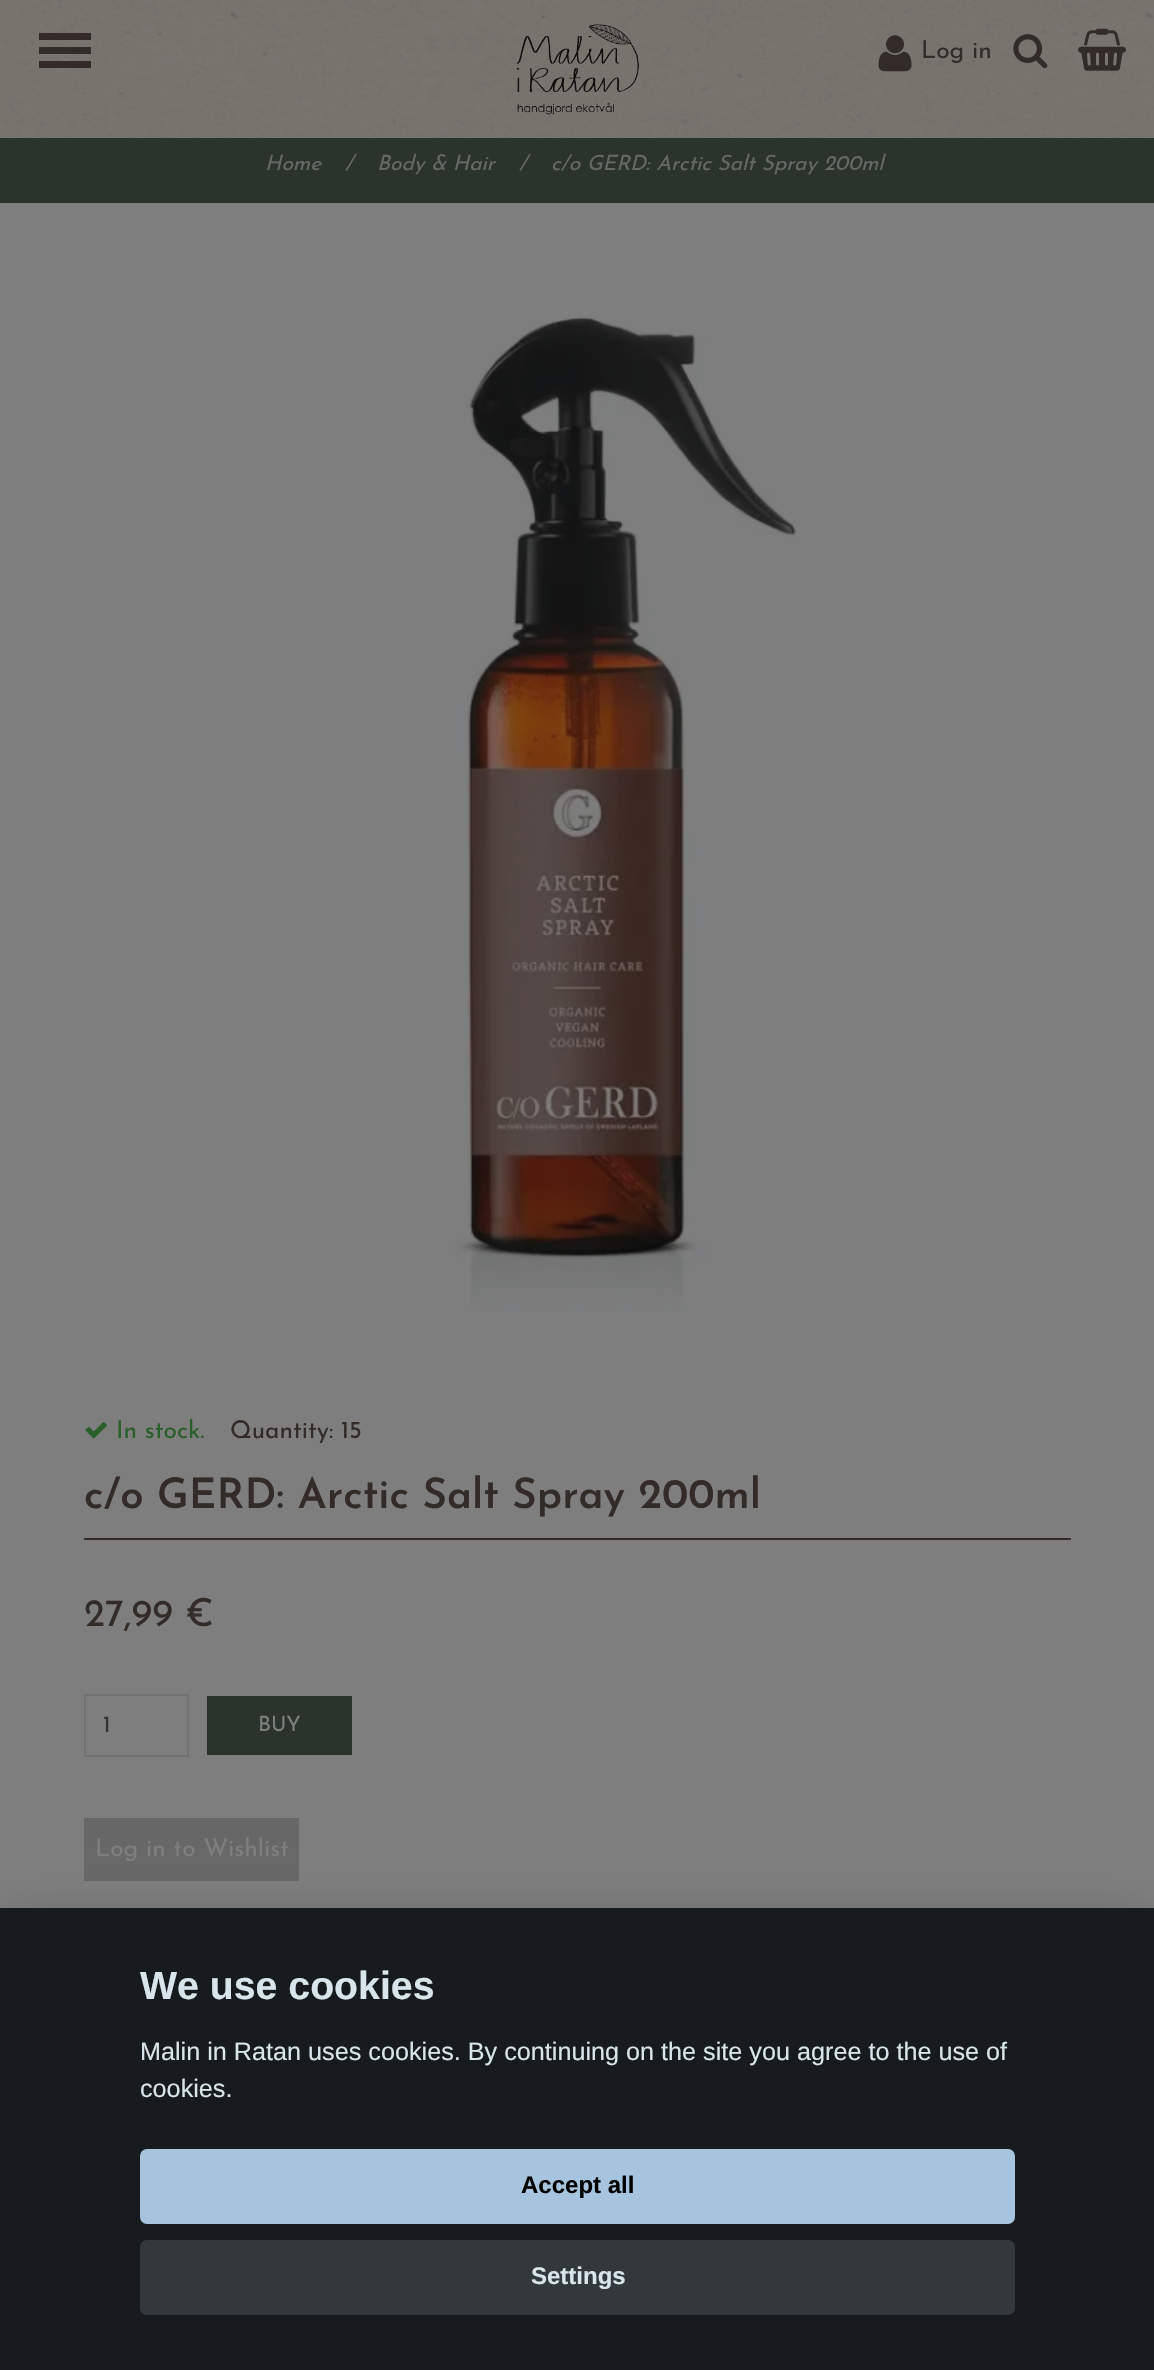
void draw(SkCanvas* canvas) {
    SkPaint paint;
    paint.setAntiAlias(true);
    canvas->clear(0xFF7E7E7F);
    canvas->drawImageRect(SkImages::DeferredFromEncodedData(SkData::MakeFromFileName("img1.png")), SkRect::MakeXYWH(0, 0, 1154, 138), SkSamplingOptions());
    paint.setColor(0xFF322B28);
    canvas->drawRect(SkRect::MakeXYWH(39, 47, 52, 7), paint);
    canvas->drawRect(SkRect::MakeXYWH(39, 33, 52, 7), paint);
    canvas->drawRect(SkRect::MakeXYWH(39, 61, 52, 7), paint);
    canvas->drawImageRect(SkImages::DeferredFromEncodedData(SkData::MakeFromFileName("img2.png")), SkRect::MakeXYWH(516, 24, 123, 91), SkSamplingOptions());
    canvas->drawImageRect(SkImages::DeferredFromEncodedData(SkData::MakeFromFileName("img3.png")), SkRect::MakeXYWH(878, 35, 34, 37), SkSamplingOptions());
    SkFont font1(fontMgr->matchFamilyStyle("Josefin Sans", SkFontStyle::Normal()), 24.5f);
    font1.setSubpixel(true);
    canvas->drawString("Log in", 921, 58, font1, paint);
    canvas->drawImageRect(SkImages::DeferredFromEncodedData(SkData::MakeFromFileName("img4.png")), SkRect::MakeXYWH(1013, 34, 35, 35), SkSamplingOptions());
    canvas->drawImageRect(SkImages::DeferredFromEncodedData(SkData::MakeFromFileName("img5.png")), SkRect::MakeXYWH(1078, 28, 48, 43), SkSamplingOptions());
    paint.setColor(0xFF2A342A);
    canvas->drawRect(SkRect::MakeXYWH(0, 138, 1154, 65), paint);
    SkFont font2(fontMgr->matchFamilyStyle("Josefin Sans", SkFontStyle::Italic()), 21);
    font2.setSubpixel(true);
    paint.setColor(0xFF656865);
    canvas->drawString("Home", 265, 170, font2, paint);
    canvas->drawString("/", 345, 170, font2, paint);
    canvas->drawString("Body & Hair", 377, 170, font2, paint);
    canvas->drawString("/", 519, 170, font2, paint);
    canvas->drawString("c/o GERD: Arctic Salt Spray 200ml", 551, 170, font2, paint);
    canvas->drawImageRect(SkImages::DeferredFromEncodedData(SkData::MakeFromFileName("img6.png")), SkRect::MakeXYWH(455, 316, 342, 996), SkSamplingOptions());
    canvas->drawImageRect(SkImages::DeferredFromEncodedData(SkData::MakeFromFileName("img7.png")), SkRect::MakeXYWH(85, 1422, 22, 17), SkSamplingOptions());
    paint.setColor(0xFF2A5F2B);
    canvas->drawString("In stock.", 116, 1438, font1, paint);
    paint.setColor(0xFF322B28);
    canvas->drawString("Quantity: 15", 230, 1438, font1, paint);
    canvas->drawRect(SkRect::MakeXYWH(84, 1538, 987, 2), paint);
    SkFont font3(fontMgr->matchFamilyStyle("Josefin Sans", SkFontStyle(600, SkFontStyle::kNormal_Width, SkFontStyle::kUpright_Slant)), 42);
    font3.setSubpixel(true);
    canvas->drawString("c/o GERD: Arctic Salt Spray 200ml", 84, 1508, font3, paint);
    SkFont font4(fontMgr->matchFamilyStyle("Josefin Sans", SkFontStyle::Normal()), 38.5f);
    font4.setSubpixel(true);
    canvas->drawString("27,99 €", 84, 1626, font4, paint);
    paint.setStyle(SkPaint::kStroke_Style);
    paint.setStrokeWidth(2);
    paint.setColor(0xFF727273);
    canvas->drawRect(SkRect::MakeXYWH(85, 1695, 103, 61), paint);
    SkFont font5(fontMgr->matchFamilyStyle("Josefin Sans", SkFontStyle::Normal()), 23);
    font5.setSubpixel(true);
    paint.setStyle(SkPaint::kFill_Style);
    paint.setColor(0xFF313232);
    canvas->drawString("1", 103, 1732, font5, paint);
    paint.setColor(0xFF2A342A);
    canvas->drawRect(SkRect::MakeXYWH(207, 1696, 145, 59), paint);
    SkFont font6(fontMgr->matchFamilyStyle("Josefin Sans", SkFontStyle::Normal()), 21);
    font6.setSubpixel(true);
    paint.setColor(0xFF7E7E7F);
    canvas->drawString("BUY", 258, 1731, font6, paint);
    paint.setColor(0xFF676768);
    canvas->drawRect(SkRect::MakeXYWH(84, 1818, 215, 63), paint);
    paint.setColor(0xFF7E7E7F);
    canvas->drawString("Log in to Wishlist", 95, 1856, font1, paint);
    paint.setColor(0x47020203);
    paint.setMaskFilter(SkMaskFilter::MakeBlur(kNormal_SkBlurStyle, 26));
    canvas->drawRect(SkRect::MakeXYWH(0, 1925, 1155, 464), paint);
    paint.setMaskFilter(nullptr);
    paint.setColor(0xFF181B1D);
    canvas->drawRect(SkRect::MakeXYWH(0, 1908, 1154, 462), paint);
    SkFont font7(fontMgr->matchFamilyStyle("Liberation Sans", SkFontStyle::Bold()), 39.25f);
    font7.setSubpixel(true);
    paint.setColor(0xFFD8E5EA);
    canvas->drawString("We use cookies", 140, 1999, font7, paint);
    SkFont font8(fontMgr->matchFamilyStyle("Liberation Sans", SkFontStyle::Normal()), 25.2f);
    font8.setSubpixel(true);
    canvas->drawString("Malin in Ratan uses cookies. By continuing on the site you agree to the use of", 140, 2060, font8, paint);
    canvas->drawString("cookies.", 140, 2097, font8, paint);
    paint.setColor(0xFFA6C4DD);
    canvas->drawRoundRect(SkRect::MakeXYWH(140, 2149, 875, 75), 7, 7, paint);
    SkFont font9(fontMgr->matchFamilyStyle("Liberation Sans", SkFontStyle::Bold()), 24);
    font9.setSubpixel(true);
    paint.setColor(0xFF000000);
    canvas->drawString("Accept all", 521, 2193, font9, paint);
    paint.setColor(0xFF33383C);
    canvas->drawRoundRect(SkRect::MakeXYWH(140, 2240, 875, 75), 7, 7, paint);
    paint.setColor(0xFFD8E5EA);
    canvas->drawString("Settings", 531, 2284, font9, paint);
}
